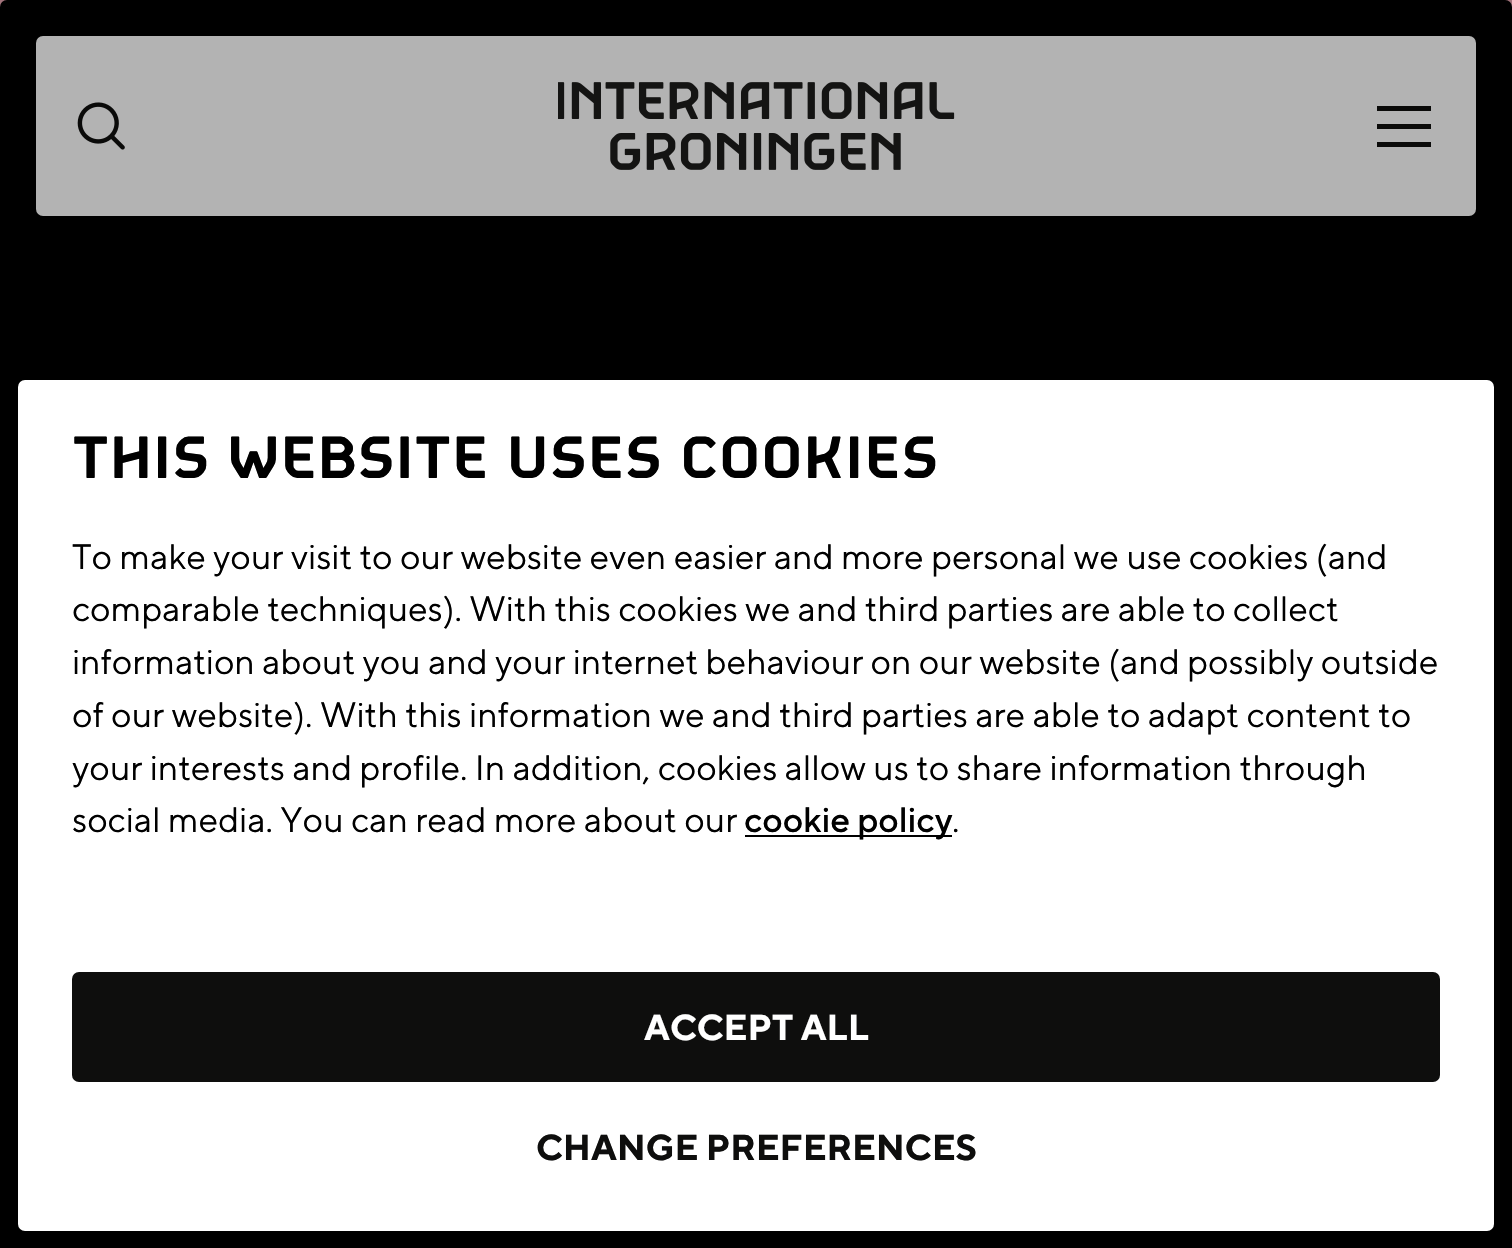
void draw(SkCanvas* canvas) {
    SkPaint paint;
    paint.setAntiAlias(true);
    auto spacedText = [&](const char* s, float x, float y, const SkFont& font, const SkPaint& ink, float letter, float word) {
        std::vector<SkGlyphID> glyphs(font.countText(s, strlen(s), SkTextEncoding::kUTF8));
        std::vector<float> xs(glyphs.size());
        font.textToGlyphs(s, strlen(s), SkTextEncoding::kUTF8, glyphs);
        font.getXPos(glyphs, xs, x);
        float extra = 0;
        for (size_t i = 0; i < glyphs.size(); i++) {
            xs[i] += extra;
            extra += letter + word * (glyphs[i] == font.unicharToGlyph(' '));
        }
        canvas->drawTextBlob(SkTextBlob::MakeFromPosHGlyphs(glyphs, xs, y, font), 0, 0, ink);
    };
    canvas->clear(0xFFA2737B);
    paint.setColor(0xFF000000);
    canvas->drawRoundRect(SkRect::MakeXYWH(0, 0, 1512, 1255), 7, 7, paint);
    {
        const SkColor colors[] = {0xE6000000, 0x1A000000};
        const float stops[] = {0, 0.7f};
        const SkPoint ends[] = {{756, 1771}, {756, 0}};
        paint.setShader(SkGradientShader::MakeLinear(ends, colors, stops, 2, SkTileMode::kClamp));
        paint.setAlpha(255);
    }
    canvas->drawRoundRect(SkRect::MakeXYWH(0, 0, 1512, 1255), 7, 7, paint);
    paint.setShader(nullptr);
    paint.setColor(0xFFB3B3B3);
    canvas->drawRoundRect(SkRect::MakeXYWH(36, 36, 1440, 180), 7, 7, paint);
    canvas->drawImageRect(SkImages::DeferredFromEncodedData(SkData::MakeFromFileName("img1.png")), SkRect::MakeXYWH(77, 102, 48, 48), SkSamplingOptions());
    canvas->drawImageRect(SkImages::DeferredFromEncodedData(SkData::MakeFromFileName("img2.png")), SkRect::MakeXYWH(558, 82, 397, 88), SkSamplingOptions());
    paint.setColor(0xFF0A0A09);
    canvas->drawRect(SkRect::MakeXYWH(1377, 106, 54, 5), paint);
    canvas->drawRect(SkRect::MakeXYWH(1377, 124, 54, 5), paint);
    canvas->drawRect(SkRect::MakeXYWH(1377, 142, 54, 5), paint);
    paint.setColor(0xFFFFFFFF);
    canvas->drawRoundRect(SkRect::MakeXYWH(18, 380, 1476, 851), 7, 7, paint);
    SkFont font1(fontMgr->matchFamilyStyle("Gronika", SkFontStyle::Normal()), 59.4f);
    font1.setSubpixel(true);
    paint.setColor(0xFF000000);
    canvas->drawString("THIS WEBSITE USES COOKIES", 72, 478, font1, paint);
    SkFont font2(fontMgr->matchFamilyStyle("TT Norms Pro", SkFontStyle::Normal()), 35.2f);
    font2.setSubpixel(true);
    canvas->drawString("To make your visit to our website even easier and more personal we use cookies (and", 72, 569, font2, paint);
    spacedText("comparable techniques). With this cookies we and third parties are able to collect", 72, 621, font2, paint, 0, -0.1f);
    spacedText("information about you and your internet behaviour on our website (and possibly outside", 72, 674, font2, paint, 0, -0.1f);
    canvas->drawString("of our website). With this information we and third parties are able to adapt content to", 72, 727, font2, paint);
    spacedText("your interests and profile. In addition, cookies allow us to share information through", 72, 780, font2, paint, 0, -0.1f);
    canvas->drawString("social media. You can read more about our", 72, 832, font2, paint);
    canvas->drawRect(SkRect::MakeXYWH(745, 835, 207, 2), paint);
    SkFont font3(fontMgr->matchFamilyStyle("TT Norms Pro", SkFontStyle(500, SkFontStyle::kNormal_Width, SkFontStyle::kUpright_Slant)), 35.2f);
    font3.setSubpixel(true);
    canvas->drawString("cookie policy", 744, 832, font3, paint);
    canvas->drawString(".", 952, 832, font2, paint);
    paint.setColor(0xFF0E0E0D);
    canvas->drawRoundRect(SkRect::MakeXYWH(72, 972, 1368, 110), 7, 7, paint);
    SkFont font4(fontMgr->matchFamilyStyle("TT Norms Pro", SkFontStyle::Bold()), 36);
    font4.setSubpixel(true);
    paint.setColor(0xFFFFFFFF);
    canvas->drawString("ACCEPT ALL", 644, 1040, font4, paint);
    paint.setColor(0xFF0E0E0D);
    canvas->drawString("CHANGE PREFERENCES", 536, 1160, font4, paint);
}
